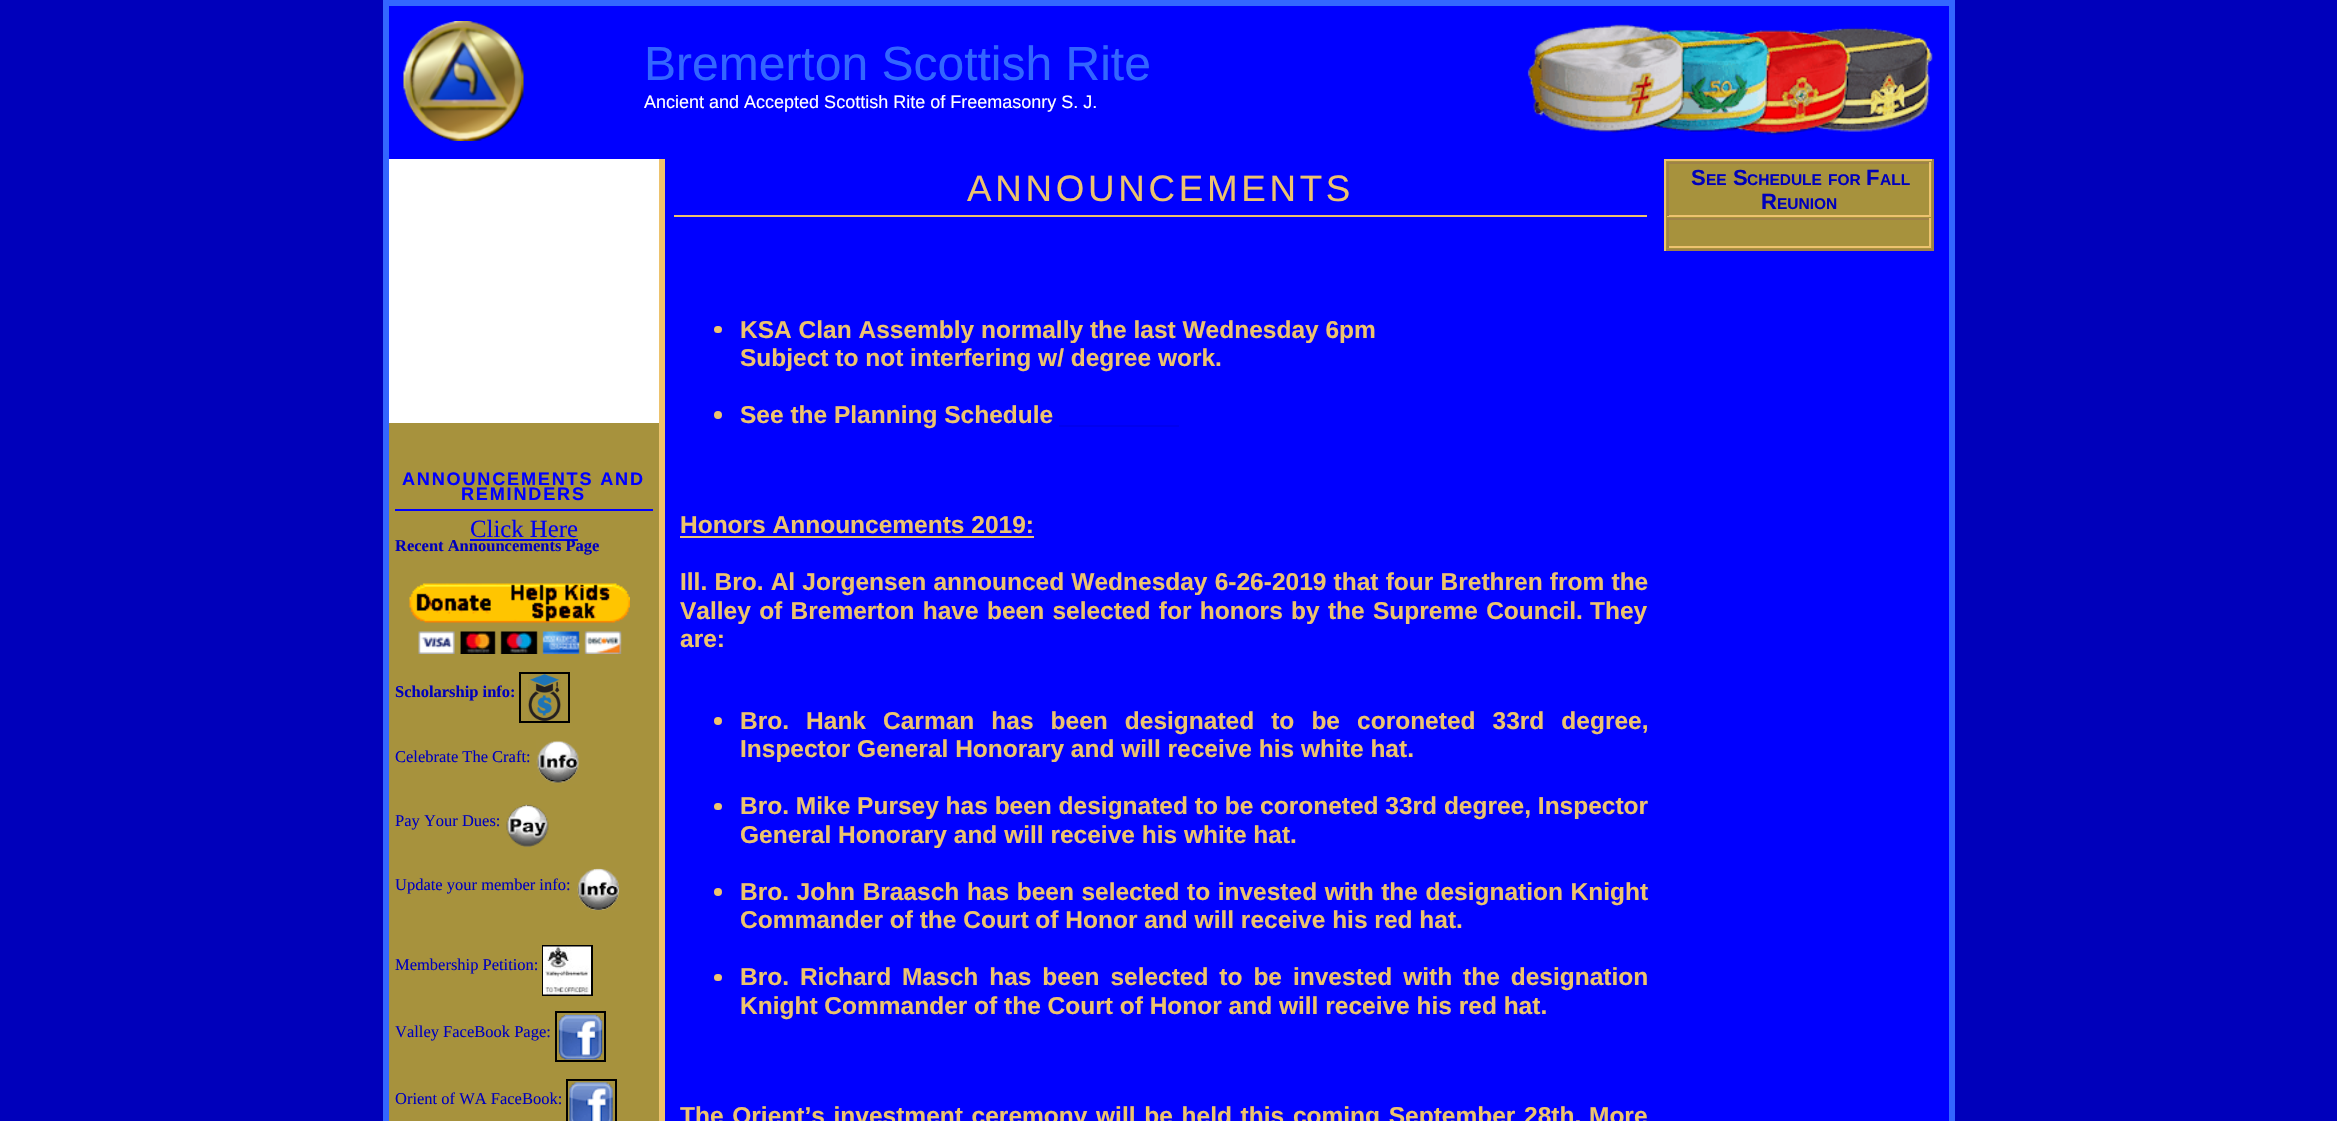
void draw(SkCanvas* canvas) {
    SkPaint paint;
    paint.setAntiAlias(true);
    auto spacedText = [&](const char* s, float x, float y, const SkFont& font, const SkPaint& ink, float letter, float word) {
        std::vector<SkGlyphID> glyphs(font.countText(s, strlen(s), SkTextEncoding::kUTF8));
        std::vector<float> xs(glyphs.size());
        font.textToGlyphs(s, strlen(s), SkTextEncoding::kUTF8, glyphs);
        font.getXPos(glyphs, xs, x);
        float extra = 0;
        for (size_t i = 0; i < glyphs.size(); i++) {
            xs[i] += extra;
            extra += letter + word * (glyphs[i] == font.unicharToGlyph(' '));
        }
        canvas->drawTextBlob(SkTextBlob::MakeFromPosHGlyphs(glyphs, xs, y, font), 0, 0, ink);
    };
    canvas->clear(0xFF0000BB);
    paint.setColor(0xFF0000FF);
    canvas->drawRect(SkRect::MakeXYWH(386, 3, 1566, 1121), paint);
    paint.setStyle(SkPaint::kStroke_Style);
    paint.setStrokeWidth(6);
    paint.setColor(0xFF3366FF);
    canvas->drawRect(SkRect::MakeXYWH(386, 3, 1566, 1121), paint);
    canvas->drawImageRect(SkImages::DeferredFromEncodedData(SkData::MakeFromFileName("img1.png")), SkRect::MakeXYWH(403, 21, 121, 120), SkSamplingOptions());
    SkFont font1(fontMgr->matchFamilyStyle("Liberation Sans", SkFontStyle::Normal()), 48);
    font1.setSubpixel(true);
    paint.setStyle(SkPaint::kFill_Style);
    canvas->drawString("Bremerton Scottish Rite", 644, 80, font1, paint);
    canvas->drawImageRect(SkImages::DeferredFromEncodedData(SkData::MakeFromFileName("img2.png")), SkRect::MakeXYWH(1527, 24, 406, 111), SkSamplingOptions());
    SkFont font2(fontMgr->matchFamilyStyle("Liberation Sans", SkFontStyle::Normal()), 18);
    font2.setSubpixel(true);
    paint.setColor(0xFFFFFFFF);
    canvas->drawString("Ancient and Accepted Scottish Rite of Freemasonry S. J.", 644, 108, font2, paint);
    paint.setColor(0xFFA7923D);
    canvas->drawRect(SkRect::MakeXYWH(389, 423, 270, 698), paint);
    paint.setColor(0xFFEDC36E);
    canvas->drawRect(SkRect::MakeXYWH(659, 159, 6, 962), paint);
    paint.setColor(0xFFFFFFFF);
    canvas->drawRect(SkRect::MakeXYWH(389, 159, 270, 264), paint);
    paint.setColor(0xFF0000FF);
    canvas->drawRect(SkRect::MakeXYWH(395, 509, 258, 2), paint);
    SkFont font3(fontMgr->matchFamilyStyle("Liberation Sans", SkFontStyle::Bold()), 18.1f);
    font3.setSubpixel(true);
    spacedText("ANNOUNCEMENTS AND", 402, 485, font3, paint, 1.8f, 0);
    spacedText("REMINDERS", 461, 500, font3, paint, 1.8f, 0);
    SkFont font4(fontMgr->matchFamilyStyle("Liberation Serif", SkFontStyle::Normal()), 24.75f);
    font4.setSubpixel(true);
    paint.setColor(0xFF0000EE);
    canvas->drawString("Click Here", 470, 537, font4, paint);
    canvas->drawRect(SkRect::MakeXYWH(470, 539, 108, 2), paint);
    SkFont font5(fontMgr->matchFamilyStyle("Liberation Serif", SkFontStyle::Bold()), 16.5f);
    font5.setSubpixel(true);
    paint.setColor(0xFF0000BB);
    canvas->drawString("Recent Announcements Page", 395, 551, font5, paint);
    canvas->drawImageRect(SkImages::DeferredFromEncodedData(SkData::MakeFromFileName("img3.png")), SkRect::MakeXYWH(409, 583, 221, 71), SkSamplingOptions());
    paint.setStyle(SkPaint::kStroke_Style);
    paint.setStrokeWidth(2);
    paint.setColor(0xFF000000);
    canvas->drawRect(SkRect::MakeXYWH(520, 673, 49, 49), paint);
    paint.setStyle(SkPaint::kFill_Style);
    paint.setColor(0xFF0000BB);
    canvas->drawString("Scholarship info:", 395, 697, font5, paint);
    canvas->drawImageRect(SkImages::DeferredFromEncodedData(SkData::MakeFromFileName("img4.png")), SkRect::MakeXYWH(528, 674, 33, 47), SkSamplingOptions());
    SkFont font6(fontMgr->matchFamilyStyle("Liberation Serif", SkFontStyle::Normal()), 16.5f);
    font6.setSubpixel(true);
    canvas->drawString("Celebrate The Craft:", 395, 762, font6, paint);
    canvas->drawImageRect(SkImages::DeferredFromEncodedData(SkData::MakeFromFileName("img5.png")), SkRect::MakeXYWH(536, 740, 44, 44), SkSamplingOptions());
    canvas->drawString("Pay Your Dues:", 395, 826, font6, paint);
    canvas->drawImageRect(SkImages::DeferredFromEncodedData(SkData::MakeFromFileName("img6.png")), SkRect::MakeXYWH(506, 804, 43, 43), SkSamplingOptions());
    canvas->drawString("Update your member info:", 395, 890, font6, paint);
    canvas->drawImageRect(SkImages::DeferredFromEncodedData(SkData::MakeFromFileName("img7.png")), SkRect::MakeXYWH(577, 868, 43, 43), SkSamplingOptions());
    paint.setStyle(SkPaint::kStroke_Style);
    paint.setColor(0xFF000000);
    canvas->drawRect(SkRect::MakeXYWH(543, 946, 49, 49), paint);
    paint.setStyle(SkPaint::kFill_Style);
    paint.setColor(0xFF0000BB);
    canvas->drawString("Membership Petition:", 395, 970, font6, paint);
    canvas->drawImageRect(SkImages::DeferredFromEncodedData(SkData::MakeFromFileName("img8.png")), SkRect::MakeXYWH(543, 946, 48, 49), SkSamplingOptions());
    paint.setStyle(SkPaint::kStroke_Style);
    paint.setColor(0xFF000000);
    canvas->drawRect(SkRect::MakeXYWH(556, 1012, 49, 49), paint);
    paint.setStyle(SkPaint::kFill_Style);
    paint.setColor(0xFF0000BB);
    canvas->drawString("Valley FaceBook Page:", 395, 1037, font6, paint);
    canvas->drawImageRect(SkImages::DeferredFromEncodedData(SkData::MakeFromFileName("img9.png")), SkRect::MakeXYWH(558, 1014, 45, 46), SkSamplingOptions());
    paint.setStyle(SkPaint::kStroke_Style);
    paint.setColor(0xFF000000);
    canvas->drawRect(SkRect::MakeXYWH(567, 1080, 49, 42), paint);
    paint.setStyle(SkPaint::kFill_Style);
    paint.setColor(0xFF0000BB);
    canvas->drawString("Orient of WA FaceBook:", 395, 1104, font6, paint);
    canvas->drawImageRect(SkImages::DeferredFromEncodedData(SkData::MakeFromFileName("img10.png")), SkRect::MakeXYWH(569, 1082, 44, 39), SkSamplingOptions());
    paint.setColor(0xFFEDC36E);
    canvas->drawRect(SkRect::MakeXYWH(674, 215, 973, 2), paint);
    SkFont font7(fontMgr->matchFamilyStyle("Liberation Sans", SkFontStyle::Normal()), 36.75f);
    font7.setSubpixel(true);
    spacedText("ANNOUNCEMENTS", 967, 201, font7, paint, 3.7f, 0);
    canvas->drawRoundRect(SkRect::MakeXYWH(714, 326, 8, 7), 3.5f, 3.5f, paint);
    SkFont font8(fontMgr->matchFamilyStyle("Liberation Sans", SkFontStyle::Bold()), 24.5f);
    font8.setSubpixel(true);
    canvas->drawString("KSA Clan Assembly normally the last Wednesday 6pm", 740, 338, font8, paint);
    canvas->drawString("Subject to not interfering w/ degree work.", 740, 366, font8, paint);
    canvas->drawCircle(718, 415, 4, paint);
    canvas->drawString("See the Planning Schedule", 740, 423, font8, paint);
    paint.setColor(0xFF0000EE);
    canvas->drawRect(SkRect::MakeXYWH(1059, 425, 120, 2), paint);
    paint.setColor(0xFFEDC36E);
    canvas->drawString("Honors Announcements 2019:", 680, 533, font8, paint);
    canvas->drawRect(SkRect::MakeXYWH(680, 536, 354, 2), paint);
    spacedText("Ill. Bro. Al Jorgensen announced Wednesday 6-26-2019 that four Brethren from the", 680, 590, font8, paint, 0, 0.4f);
    spacedText("Valley of Bremerton have been selected for honors by the Supreme Council.", 680, 619, font8, paint, 0, 1.5f);
    canvas->drawString("They", 1590, 619, font8, paint);
    canvas->drawString("are:", 680, 647, font8, paint);
    canvas->drawCircle(718, 721, 4, paint);
    spacedText("Bro. Hank Carman has been designated to be coroneted 33rd degree,", 740, 729, font8, paint, 0, 10.25f);
    canvas->drawString("Inspector General Honorary and will receive his white hat.", 740, 757, font8, paint);
    canvas->drawRoundRect(SkRect::MakeXYWH(714, 803, 8, 7), 3.5f, 3.5f, paint);
    canvas->drawString("Bro. Mike Pursey has been designated to be coroneted 33rd degree, Inspector", 740, 814, font8, paint);
    canvas->drawString("General Honorary and will receive his white hat.", 740, 843, font8, paint);
    canvas->drawCircle(718, 892, 4, paint);
    spacedText("Bro. John Braasch has been selected to invested with the designation Knight", 740, 900, font8, paint, 0, 0.75f);
    canvas->drawString("Commander of the Court of Honor and will receive his red hat.", 740, 928, font8, paint);
    canvas->drawRoundRect(SkRect::MakeXYWH(714, 974, 8, 7), 3.5f, 3.5f, paint);
    spacedText("Bro. Richard Masch has been selected to be invested with the designation", 740, 985, font8, paint, 0, 4.1f);
    canvas->drawString("Knight Commander of the Court of Honor and will receive his red hat.", 740, 1014, font8, paint);
    spacedText("The Orient’s investment ceremony will be held this coming September 28th.", 680, 1124, font8, paint, 0, 1.9f);
    canvas->drawString("More", 1589, 1124, font8, paint);
    paint.setColor(0xFFA7923D);
    canvas->drawRect(SkRect::MakeXYWH(1666, 161, 266, 88), paint);
    paint.setColor(0xFFEDC36E);
    canvas->drawRect(SkRect::MakeXYWH(1664, 159, 270, 2), paint);
    paint.setColor(0xFF9E8249);
    canvas->drawRect(SkRect::MakeXYWH(1932, 159, 2, 92), paint);
    canvas->drawRect(SkRect::MakeXYWH(1664, 249, 270, 2), paint);
    paint.setColor(0xFFEDC36E);
    canvas->drawRect(SkRect::MakeXYWH(1664, 159, 2, 92), paint);
    paint.setColor(0xFF9E8249);
    canvas->drawRect(SkRect::MakeXYWH(1667, 162, 264, 2), paint);
    paint.setColor(0xFFEDC36E);
    canvas->drawRect(SkRect::MakeXYWH(1929, 162, 2, 54), paint);
    canvas->drawRect(SkRect::MakeXYWH(1667, 215, 264, 2), paint);
    paint.setColor(0xFF9E8249);
    canvas->drawRect(SkRect::MakeXYWH(1667, 162, 2, 54), paint);
    SkFont font9(fontMgr->matchFamilyStyle("Liberation Sans", SkFontStyle::Bold()), 22);
    font9.setSubpixel(true);
    paint.setColor(0xFF0000BB);
    canvas->drawString("S", 1691, 185, font9, paint);
    SkFont font10(fontMgr->matchFamilyStyle("Liberation Sans", SkFontStyle::Bold()), 15.5f);
    font10.setSubpixel(true);
    canvas->drawString("EE", 1706, 185, font10, paint);
    canvas->drawString("S", 1733, 185, font9, paint);
    canvas->drawString("CHEDULE", 1747, 185, font10, paint);
    canvas->drawString("FOR", 1828, 185, font10, paint);
    canvas->drawString("F", 1866, 185, font9, paint);
    canvas->drawString("ALL", 1880, 185, font10, paint);
    canvas->drawString("R", 1761, 209, font9, paint);
    canvas->drawString("EUNION", 1777, 209, font10, paint);
    paint.setColor(0xFF9E8249);
    canvas->drawRect(SkRect::MakeXYWH(1667, 218, 264, 2), paint);
    paint.setColor(0xFFEDC36E);
    canvas->drawRect(SkRect::MakeXYWH(1929, 218, 2, 30), paint);
    canvas->drawRect(SkRect::MakeXYWH(1667, 246, 264, 2), paint);
    paint.setColor(0xFF9E8249);
    canvas->drawRect(SkRect::MakeXYWH(1667, 218, 2, 30), paint);
}
